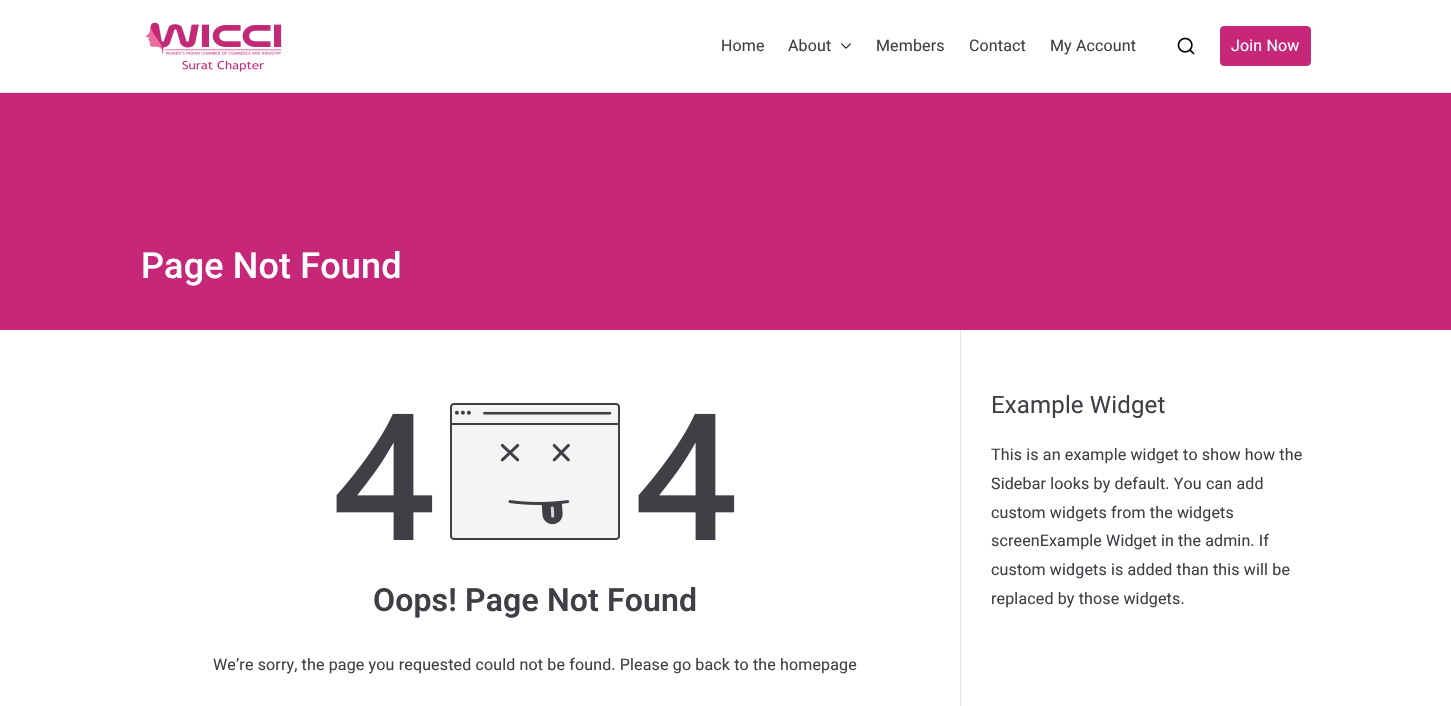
void draw(SkCanvas* canvas) {
    SkPaint paint;
    paint.setAntiAlias(true);
    auto spacedText = [&](const char* s, float x, float y, const SkFont& font, const SkPaint& ink, float letter, float word) {
        std::vector<SkGlyphID> glyphs(font.countText(s, strlen(s), SkTextEncoding::kUTF8));
        std::vector<float> xs(glyphs.size());
        font.textToGlyphs(s, strlen(s), SkTextEncoding::kUTF8, glyphs);
        font.getXPos(glyphs, xs, x);
        float extra = 0;
        for (size_t i = 0; i < glyphs.size(); i++) {
            xs[i] += extra;
            extra += letter + word * (glyphs[i] == font.unicharToGlyph(' '));
        }
        canvas->drawTextBlob(SkTextBlob::MakeFromPosHGlyphs(glyphs, xs, y, font), 0, 0, ink);
    };
    canvas->clear(0xFFE4E4E7);
    paint.setColor(0xFFFFFFFF);
    canvas->drawRect(SkRect::MakeXYWH(0, 0, 1451, 92), paint);
    canvas->drawImageRect(SkImages::DeferredFromEncodedData(SkData::MakeFromFileName("img1.png")), SkRect::MakeXYWH(146, 22, 136, 50), SkSamplingOptions());
    SkFont font1(fontMgr->matchFamilyStyle("Roboto", SkFontStyle::Normal()), 16);
    font1.setSubpixel(true);
    paint.setColor(0xFF3F3F46);
    spacedText("Home", 721, 51, font1, paint, 0.15f, 0);
    spacedText("About", 788, 51, font1, paint, 0.15f, 0);
    canvas->drawImageRect(SkImages::DeferredFromEncodedData(SkData::MakeFromFileName("img2.png")), SkRect::MakeXYWH(841, 43, 10, 6), SkSamplingOptions());
    spacedText("Members", 876, 51, font1, paint, 0.15f, 0);
    spacedText("Contact", 969, 51, font1, paint, 0.15f, 0);
    spacedText("My Account", 1050, 51, font1, paint, 0.15f, 0);
    canvas->drawImageRect(SkImages::DeferredFromEncodedData(SkData::MakeFromFileName("img3.png")), SkRect::MakeXYWH(1177, 37, 18, 18), SkSamplingOptions());
    paint.setColor(0xFFC72778);
    canvas->drawRoundRect(SkRect::MakeXYWH(1220.5f, 26.5f, 90, 39), 3.5f, 3.5f, paint);
    paint.setStyle(SkPaint::kStroke_Style);
    paint.setStrokeWidth(1);
    paint.setColor(0xFFC22976);
    canvas->drawRoundRect(SkRect::MakeXYWH(1220.5f, 26.5f, 90, 39), 3.5f, 3.5f, paint);
    paint.setStyle(SkPaint::kFill_Style);
    paint.setColor(0xFFFFFFFF);
    spacedText("Join Now", 1231, 51, font1, paint, 0.15f, 0);
    paint.setColor(0xFFC72778);
    canvas->drawRect(SkRect::MakeXYWH(0, 93, 1451, 237), paint);
    SkFont font2(fontMgr->matchFamilyStyle("Roboto", SkFontStyle(500, SkFontStyle::kNormal_Width, SkFontStyle::kUpright_Slant)), 36);
    font2.setSubpixel(true);
    paint.setColor(0xFFFFFFFF);
    spacedText("Page Not Found", 141, 278, font2, paint, 0.15f, 0);
    canvas->drawRect(SkRect::MakeXYWH(0, 330, 1451, 376), paint);
    paint.setColor(0xFFE4E4E7);
    canvas->drawRect(SkRect::MakeXYWH(960, 330, 1, 376), paint);
    SkFont font3(fontMgr->matchFamilyStyle("Roboto", SkFontStyle::Normal()), 24);
    font3.setSubpixel(true);
    paint.setColor(0xFF3F3F46);
    spacedText("Example Widget", 991, 413, font3, paint, 0.15f, 0);
    spacedText("This is an example widget to show how the", 991, 460, font1, paint, 0.15f, 0);
    spacedText("Sidebar looks by default. You can add", 991, 489, font1, paint, 0.15f, 0);
    spacedText("custom widgets from the widgets", 991, 518, font1, paint, 0.15f, 0);
    spacedText("screenExample Widget in the admin. If", 991, 546, font1, paint, 0.15f, 0);
    spacedText("custom widgets is added than this will be", 991, 575, font1, paint, 0.15f, 0);
    spacedText("replaced by those widgets.", 991, 604, font1, paint, 0.15f, 0);
    canvas->drawImageRect(SkImages::DeferredFromEncodedData(SkData::MakeFromFileName("img4.png")), SkRect::MakeXYWH(336, 403, 399, 137), SkSamplingOptions());
    SkFont font4(fontMgr->matchFamilyStyle("Roboto", SkFontStyle(600, SkFontStyle::kNormal_Width, SkFontStyle::kUpright_Slant)), 32);
    font4.setSubpixel(true);
    spacedText("Oops! Page Not Found", 373, 611, font4, paint, 0.15f, 0);
    spacedText("We’re sorry, the page you requested could not be found. Please go back to the homepage", 213, 670, font1, paint, 0.15f, 0);
}
